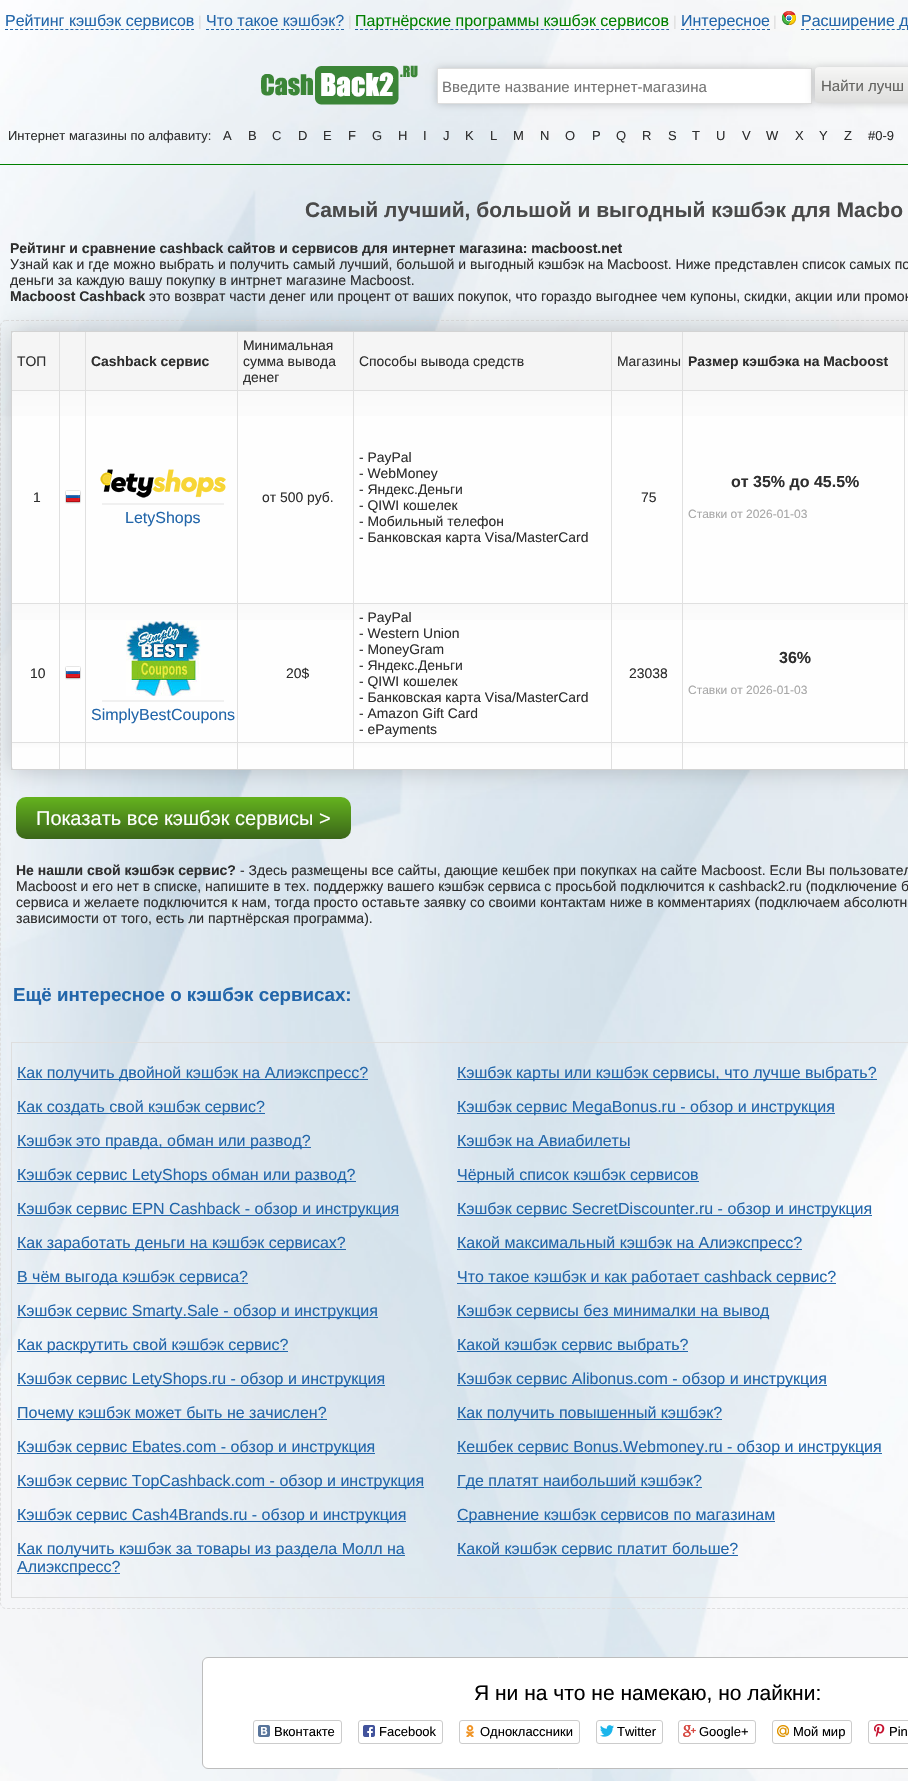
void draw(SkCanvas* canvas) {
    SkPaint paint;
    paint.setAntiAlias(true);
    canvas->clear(0xFFFFFFFF);
    canvas->drawImageRect(SkImages::DeferredFromEncodedData(SkData::MakeFromFileName("img1.png")), SkRect::MakeXYWH(0, 0, 908, 1781), SkSamplingOptions());
    paint.setStyle(SkPaint::kStroke_Style);
    paint.setStrokeWidth(1);
    paint.setColor(0xFF2266AA);
    paint.setPathEffect(SkDashPathEffect::Make({{3, 2.03f}}, 0));
    canvas->drawPath(SkPathBuilder().moveTo(5, 29.5f).lineTo(194, 29.5f).detach(), paint);
    paint.setPathEffect(nullptr);
    SkFont font1(fontMgr->matchFamilyStyle("Liberation Sans", SkFontStyle::Normal()), 16);
    font1.setSubpixel(true);
    paint.setStyle(SkPaint::kFill_Style);
    canvas->drawString("Рейтинг кэшбэк сервисов", 5, 26, font1, paint);
    SkFont font2(fontMgr->matchFamilyStyle("Liberation Sans", SkFontStyle::Normal()), 14);
    font2.setSubpixel(true);
    paint.setColor(0xFFDEDEDE);
    canvas->drawString("|", 198, 26, font2, paint);
    paint.setColor(0xFF2266AA);
    canvas->drawString("Что такое кэшбэк?", 206, 26, font1, paint);
    paint.setStyle(SkPaint::kStroke_Style);
    paint.setPathEffect(SkDashPathEffect::Make({{3, 2}}, 0));
    canvas->drawPath(SkPathBuilder().moveTo(206, 29.5f).lineTo(344, 29.5f).detach(), paint);
    paint.setPathEffect(nullptr);
    paint.setStyle(SkPaint::kFill_Style);
    paint.setColor(0xFFDEDEDE);
    canvas->drawString("|", 348, 26, font2, paint);
    paint.setStyle(SkPaint::kStroke_Style);
    paint.setColor(0xFF2266AA);
    paint.setPathEffect(SkDashPathEffect::Make({{3, 2.02f}}, 0));
    canvas->drawPath(SkPathBuilder().moveTo(355, 29.5f).lineTo(669, 29.5f).detach(), paint);
    paint.setPathEffect(nullptr);
    paint.setStyle(SkPaint::kFill_Style);
    paint.setColor(0xFF008000);
    canvas->drawString("Партнёрские программы кэшбэк сервисов", 355, 26, font1, paint);
    paint.setColor(0xFFDEDEDE);
    canvas->drawString("|", 673, 26, font2, paint);
    paint.setStyle(SkPaint::kStroke_Style);
    paint.setColor(0xFF2266AA);
    paint.setPathEffect(SkDashPathEffect::Make({{3, 2.06f}}, 0));
    canvas->drawPath(SkPathBuilder().moveTo(681, 29.5f).lineTo(770, 29.5f).detach(), paint);
    paint.setPathEffect(nullptr);
    paint.setStyle(SkPaint::kFill_Style);
    canvas->drawString("Интересное", 681, 26, font1, paint);
    paint.setColor(0xFFDEDEDE);
    canvas->drawString("|", 773, 26, font2, paint);
    canvas->drawImageRect(SkImages::DeferredFromEncodedData(SkData::MakeFromFileName("img2.png")), SkRect::MakeXYWH(782, 11, 14, 14), SkSamplingOptions());
    paint.setStyle(SkPaint::kStroke_Style);
    paint.setColor(0xFF2266AA);
    paint.setPathEffect(SkDashPathEffect::Make({{3, 2.04f}}, 0));
    canvas->drawPath(SkPathBuilder().moveTo(801, 29.5f).lineTo(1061, 29.5f).detach(), paint);
    paint.setPathEffect(nullptr);
    paint.setStyle(SkPaint::kFill_Style);
    canvas->drawString("Расширение д", 801, 26, font1, paint);
    canvas->drawImageRect(SkImages::DeferredFromEncodedData(SkData::MakeFromFileName("img3.png")), SkRect::MakeXYWH(261, 65, 157, 40), SkSamplingOptions());
    paint.setColor(0x33000000);
    paint.setMaskFilter(SkMaskFilter::MakeBlur(kNormal_SkBlurStyle, 4));
    canvas->drawRect(SkRect::MakeXYWH(437, 68, 375, 36), paint);
    paint.setMaskFilter(nullptr);
    paint.setColor(0xFFFFFFFF);
    canvas->drawRect(SkRect::MakeXYWH(437.5f, 68.5f, 374, 35), paint);
    paint.setStyle(SkPaint::kStroke_Style);
    paint.setColor(0xFFDEDEDE);
    canvas->drawRect(SkRect::MakeXYWH(437.5f, 68.5f, 374, 35), paint);
    SkFont font3(fontMgr->matchFamilyStyle("Liberation Sans", SkFontStyle::Normal()), 15);
    font3.setSubpixel(true);
    paint.setStyle(SkPaint::kFill_Style);
    paint.setColor(0xFF757575);
    canvas->drawString("Введите название интернет-магазина", 442, 92, font3, paint);
    paint.setColor(0x33000000);
    paint.setMaskFilter(SkMaskFilter::MakeBlur(kNormal_SkBlurStyle, 4));
    canvas->drawRoundRect(SkRect::MakeXYWH(815, 67, 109, 36), 4, 4, paint);
    paint.setMaskFilter(nullptr);
    {
        const SkColor colors[] = {0xFFF5F5F4, 0xFFDEDEDD};
        const float stops[] = {0.05f, 1};
        const SkPoint ends[] = {{815, 67}, {815, 103}};
        paint.setShader(SkGradientShader::MakeLinear(ends, colors, stops, 2, SkTileMode::kClamp));
        paint.setAlpha(255);
    }
    canvas->drawRoundRect(SkRect::MakeXYWH(815, 67, 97, 36), 4, 4, paint);
    paint.setShader(nullptr);
    paint.setColor(0xFF636360);
    canvas->drawString("Найти лучш", 821, 91, font3, paint);
    SkFont font4(fontMgr->matchFamilyStyle("Liberation Sans", SkFontStyle::Normal()), 13);
    font4.setSubpixel(true);
    paint.setColor(0xFF2E2E2E);
    canvas->drawString("Интернет магазины по алфавиту:", 8, 140, font4, paint);
    canvas->drawString("A", 223, 140, font4, paint);
    canvas->drawString("B", 248, 140, font4, paint);
    canvas->drawString("C", 272, 140, font4, paint);
    canvas->drawString("D", 298, 140, font4, paint);
    canvas->drawString("E", 323, 140, font4, paint);
    canvas->drawString("F", 348, 140, font4, paint);
    canvas->drawString("G", 372, 140, font4, paint);
    canvas->drawString("H", 398, 140, font4, paint);
    canvas->drawString("I", 423, 140, font4, paint);
    canvas->drawString("J", 443, 140, font4, paint);
    canvas->drawString("K", 465, 140, font4, paint);
    canvas->drawString("L", 490, 140, font4, paint);
    canvas->drawString("M", 513, 140, font4, paint);
    canvas->drawString("N", 540, 140, font4, paint);
    canvas->drawString("O", 565, 140, font4, paint);
    canvas->drawString("P", 592, 140, font4, paint);
    canvas->drawString("Q", 616, 140, font4, paint);
    canvas->drawString("R", 642, 140, font4, paint);
    canvas->drawString("S", 668, 140, font4, paint);
    canvas->drawString("T", 692, 140, font4, paint);
    canvas->drawString("U", 716, 140, font4, paint);
    canvas->drawString("V", 742, 140, font4, paint);
    canvas->drawString("W", 766, 140, font4, paint);
    canvas->drawString("X", 795, 140, font4, paint);
    canvas->drawString("Y", 819, 140, font4, paint);
    canvas->drawString("Z", 844, 140, font4, paint);
    canvas->drawString("#0-9", 868, 140, font4, paint);
    paint.setColor(0xFF008000);
    canvas->drawRect(SkRect::MakeXYWH(0, 164, 908, 1), paint);
    SkFont font5(fontMgr->matchFamilyStyle("Liberation Sans", SkFontStyle::Bold()), 21);
    font5.setSubpixel(true);
    paint.setColor(0xFF4A4A4A);
    canvas->drawString("Самый лучший, большой и выгодный кэшбэк для Macbo", 305, 217, font5, paint);
    SkFont font6(fontMgr->matchFamilyStyle("Liberation Sans", SkFontStyle::Bold()), 14);
    font6.setSubpixel(true);
    paint.setColor(0xFF2E2E2E);
    canvas->drawString("Рейтинг и сравнение cashback сайтов и сервисов для интернет магазина: macboost.net", 10, 253, font6, paint);
    canvas->drawString("Узнай как и где можно выбрать и получить самый лучший, большой и выгодный кэшбэк на Macboost. Ниже представлен список самых по", 10, 269, font2, paint);
    canvas->drawString("деньги за каждую вашу покупку в интрнет магазине Macboost.", 10, 285, font2, paint);
    canvas->drawString("Macboost Cashback", 10, 301, font6, paint);
    canvas->drawString("это возврат части денег или процент от ваших покупок, что гораздо выгоднее чем купоны, скидки, акции или промок", 149, 301, font2, paint);
    paint.setStyle(SkPaint::kStroke_Style);
    paint.setColor(0xFFDEDEDE);
    paint.setPathEffect(SkDashPathEffect::Make({{3, 2}}, 0));
    canvas->drawPath(SkPathBuilder().moveTo(6, 320.5f).lineTo(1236, 320.5f).cubicTo(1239, 320.5f, 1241.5f, 323, 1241.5f, 326).lineTo(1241.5f, 1603).cubicTo(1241.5f, 1606, 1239, 1608.5f, 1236, 1608.5f).lineTo(6, 1608.5f).cubicTo(3, 1608.5f, 0.5f, 1606, 0.5f, 1603).lineTo(0.5f, 326).cubicTo(0.5f, 323, 3, 320.5f, 6, 320.5f).close().detach(), paint);
    paint.setPathEffect(nullptr);
    paint.setStyle(SkPaint::kFill_Style);
    {
        const SkColor colors[] = {0xFF64B31E, 0xFF3B661A};
        const float stops[] = {0, 1};
        const SkPoint ends[] = {{184, 797}, {184, 839}};
        paint.setShader(SkGradientShader::MakeLinear(ends, colors, stops, 2, SkTileMode::kClamp));
        paint.setAlpha(255);
    }
    canvas->drawRoundRect(SkRect::MakeXYWH(16, 797, 335, 42), 10, 10, paint);
    paint.setShader(nullptr);
    paint.setColor(0x33000000);
    paint.setMaskFilter(SkMaskFilter::MakeBlur(kNormal_SkBlurStyle, 12));
    canvas->drawRoundRect(SkRect::MakeXYWH(11, 331, 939, 439), 6, 6, paint);
    paint.setMaskFilter(nullptr);
    paint.setColor(0xFFFEFEFE);
    canvas->drawRoundRect(SkRect::MakeXYWH(11, 331, 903, 439), 6, 6, paint);
    paint.setColor(0xFFD3D3D3);
    canvas->drawRect(SkRect::MakeXYWH(11, 331, 897, 1), paint);
    canvas->drawRect(SkRect::MakeXYWH(11, 769, 897, 1), paint);
    canvas->drawRect(SkRect::MakeXYWH(11, 331, 1, 439), paint);
    paint.setColor(0xFFF5F5F5);
    canvas->drawPath(SkPathBuilder().moveTo(17, 332).lineTo(908, 332).cubicTo(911, 332, 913, 334, 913, 337).lineTo(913, 390).lineTo(12, 390).lineTo(12, 337).cubicTo(12, 334, 14, 332, 17, 332).close().detach(), paint);
    SkFont font7(fontMgr->matchFamilyStyle("Liberation Sans", SkFontStyle::Normal()), 13.9f);
    font7.setSubpixel(true);
    paint.setColor(0xFF2E2E2E);
    canvas->drawString("ТОП", 17, 366, font7, paint);
    paint.setColor(0xFFE0E0E0);
    canvas->drawRect(SkRect::MakeXYWH(904, 390, 4, 1), paint);
    {
        const SkColor colors[] = {0xFFF9F9F9, 0xFFFEFEFE};
        const float stops[] = {0, 1};
        const SkPoint ends[] = {{12, 390}, {12, 443}};
        paint.setShader(SkGradientShader::MakeLinear(ends, colors, stops, 2, SkTileMode::kClamp));
        paint.setAlpha(255);
    }
    canvas->drawRect(SkRect::MakeXYWH(12, 391, 896, 25), paint);
    paint.setShader(nullptr);
    paint.setColor(0xFFE0E0E0);
    canvas->drawRect(SkRect::MakeXYWH(904, 603, 4, 1), paint);
    {
        const SkColor colors[] = {0xFFF9F9F9, 0xFFFEFEFE};
        const float stops[] = {0, 1};
        const SkPoint ends[] = {{12, 603}, {12, 638}};
        paint.setShader(SkGradientShader::MakeLinear(ends, colors, stops, 2, SkTileMode::kClamp));
        paint.setAlpha(255);
    }
    canvas->drawRect(SkRect::MakeXYWH(12, 604, 896, 16), paint);
    {
        const SkColor colors[] = {0xFFF9F9F9, 0xFFFEFEFE};
        const float stops[] = {0, 1};
        const SkPoint ends[] = {{12, 742}, {12, 749}};
        paint.setShader(SkGradientShader::MakeLinear(ends, colors, stops, 2, SkTileMode::kClamp));
        paint.setAlpha(255);
    }
    canvas->drawPath(SkPathBuilder().moveTo(12, 742).lineTo(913, 742).lineTo(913, 764).cubicTo(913, 767, 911, 769, 908, 769).lineTo(17, 769).cubicTo(14, 769, 12, 767, 12, 764).close().detach(), paint);
    paint.setShader(nullptr);
    paint.setColor(0xFFE0E0E0);
    canvas->drawRect(SkRect::MakeXYWH(904, 742, 4, 1), paint);
    canvas->drawRect(SkRect::MakeXYWH(904, 742, 1, 27), paint);
    canvas->drawRect(SkRect::MakeXYWH(682, 742, 223, 1), paint);
    canvas->drawRect(SkRect::MakeXYWH(904, 603, 1, 140), paint);
    canvas->drawRect(SkRect::MakeXYWH(682, 603, 223, 1), paint);
    canvas->drawRect(SkRect::MakeXYWH(904, 390, 1, 214), paint);
    canvas->drawRect(SkRect::MakeXYWH(682, 390, 223, 1), paint);
    canvas->drawRect(SkRect::MakeXYWH(682, 742, 1, 27), paint);
    canvas->drawRect(SkRect::MakeXYWH(611, 742, 72, 1), paint);
    canvas->drawRect(SkRect::MakeXYWH(682, 603, 1, 140), paint);
    canvas->drawRect(SkRect::MakeXYWH(611, 603, 72, 1), paint);
    canvas->drawRect(SkRect::MakeXYWH(682, 390, 1, 214), paint);
    canvas->drawRect(SkRect::MakeXYWH(611, 390, 72, 1), paint);
    canvas->drawRect(SkRect::MakeXYWH(611, 742, 1, 27), paint);
    canvas->drawRect(SkRect::MakeXYWH(353, 742, 259, 1), paint);
    canvas->drawRect(SkRect::MakeXYWH(611, 603, 1, 140), paint);
    canvas->drawRect(SkRect::MakeXYWH(353, 603, 259, 1), paint);
    canvas->drawRect(SkRect::MakeXYWH(611, 390, 1, 214), paint);
    canvas->drawRect(SkRect::MakeXYWH(353, 390, 259, 1), paint);
    canvas->drawRect(SkRect::MakeXYWH(353, 742, 1, 27), paint);
    canvas->drawRect(SkRect::MakeXYWH(237, 742, 117, 1), paint);
    canvas->drawRect(SkRect::MakeXYWH(353, 603, 1, 140), paint);
    canvas->drawRect(SkRect::MakeXYWH(237, 603, 117, 1), paint);
    canvas->drawRect(SkRect::MakeXYWH(353, 390, 1, 214), paint);
    canvas->drawRect(SkRect::MakeXYWH(237, 390, 117, 1), paint);
    canvas->drawRect(SkRect::MakeXYWH(237, 742, 1, 27), paint);
    canvas->drawRect(SkRect::MakeXYWH(85, 742, 153, 1), paint);
    canvas->drawRect(SkRect::MakeXYWH(237, 603, 1, 140), paint);
    canvas->drawRect(SkRect::MakeXYWH(85, 603, 153, 1), paint);
    canvas->drawRect(SkRect::MakeXYWH(237, 390, 1, 214), paint);
    canvas->drawRect(SkRect::MakeXYWH(85, 390, 153, 1), paint);
    canvas->drawRect(SkRect::MakeXYWH(85, 742, 1, 27), paint);
    canvas->drawRect(SkRect::MakeXYWH(59, 742, 27, 1), paint);
    canvas->drawRect(SkRect::MakeXYWH(85, 603, 1, 140), paint);
    canvas->drawRect(SkRect::MakeXYWH(59, 603, 27, 1), paint);
    canvas->drawRect(SkRect::MakeXYWH(85, 390, 1, 214), paint);
    canvas->drawRect(SkRect::MakeXYWH(59, 390, 27, 1), paint);
    canvas->drawRect(SkRect::MakeXYWH(59, 742, 1, 27), paint);
    canvas->drawRect(SkRect::MakeXYWH(12, 742, 48, 1), paint);
    canvas->drawRect(SkRect::MakeXYWH(59, 603, 1, 140), paint);
    canvas->drawRect(SkRect::MakeXYWH(12, 603, 48, 1), paint);
    canvas->drawRect(SkRect::MakeXYWH(59, 390, 1, 214), paint);
    canvas->drawRect(SkRect::MakeXYWH(12, 390, 48, 1), paint);
    canvas->drawRect(SkRect::MakeXYWH(59, 332, 1, 59), paint);
    canvas->drawRect(SkRect::MakeXYWH(85, 332, 1, 59), paint);
    SkFont font8(fontMgr->matchFamilyStyle("Liberation Sans", SkFontStyle::Bold()), 13.9f);
    font8.setSubpixel(true);
    paint.setColor(0xFF2E2E2E);
    canvas->drawString("Cashback сервис", 91, 366, font8, paint);
    paint.setColor(0xFFE0E0E0);
    canvas->drawRect(SkRect::MakeXYWH(237, 332, 1, 59), paint);
    paint.setColor(0xFF2E2E2E);
    canvas->drawString("Минимальная", 243, 350, font7, paint);
    canvas->drawString("сумма вывода", 243, 366, font7, paint);
    canvas->drawString("денег", 243, 382, font7, paint);
    paint.setColor(0xFFE0E0E0);
    canvas->drawRect(SkRect::MakeXYWH(353, 332, 1, 59), paint);
    paint.setColor(0xFF2E2E2E);
    canvas->drawString("Способы вывода средств", 359, 366, font7, paint);
    paint.setColor(0xFFE0E0E0);
    canvas->drawRect(SkRect::MakeXYWH(611, 332, 1, 59), paint);
    paint.setColor(0xFF2E2E2E);
    canvas->drawString("Магазины", 617, 366, font7, paint);
    paint.setColor(0xFFE0E0E0);
    canvas->drawRect(SkRect::MakeXYWH(682, 332, 1, 59), paint);
    paint.setColor(0xFF2E2E2E);
    canvas->drawString("Размер кэшбэка на Macboost", 688, 366, font8, paint);
    paint.setColor(0xFFE0E0E0);
    canvas->drawRect(SkRect::MakeXYWH(904, 332, 1, 59), paint);
    paint.setColor(0xFF2E2E2E);
    canvas->drawString("1", 33, 502, font7, paint);
    canvas->drawImageRect(SkImages::DeferredFromEncodedData(SkData::MakeFromFileName("img4.png")), SkRect::MakeXYWH(65, 490, 16, 14), SkSamplingOptions());
    canvas->drawString("от 500 руб.", 262, 502, font7, paint);
    canvas->drawString("- PayPal", 359, 462, font7, paint);
    canvas->drawString("- WebMoney", 359, 478, font7, paint);
    canvas->drawString("- Яндекс.Деньги", 359, 494, font7, paint);
    canvas->drawString("- QIWI кошелек", 359, 510, font7, paint);
    canvas->drawString("- Мобильный телефон", 359, 526, font7, paint);
    canvas->drawString("- Банковская карта Visa/MasterCard", 359, 542, font7, paint);
    canvas->drawString("75", 641, 502, font7, paint);
    SkFont font9(fontMgr->matchFamilyStyle("Liberation Sans", SkFontStyle::Bold()), 16);
    font9.setSubpixel(true);
    canvas->drawString("от 35% до 45.5%", 731, 487, font9, paint);
    SkFont font10(fontMgr->matchFamilyStyle("Liberation Sans", SkFontStyle::Normal()), 12);
    font10.setSubpixel(true);
    paint.setColor(0xFFA8A8A8);
    canvas->drawString("Ставки от 2026-01-03", 688, 518, font10, paint);
    canvas->drawImageRect(SkImages::DeferredFromEncodedData(SkData::MakeFromFileName("img5.png")), SkRect::MakeXYWH(100, 469, 126, 29), SkSamplingOptions());
    paint.setColor(0xFFF0F0F0);
    canvas->drawRect(SkRect::MakeXYWH(102, 503, 122, 2), paint);
    paint.setColor(0xFF2266AA);
    canvas->drawString("LetyShops", 125, 523, font1, paint);
    paint.setColor(0xFF2E2E2E);
    canvas->drawString("10", 30, 678, font7, paint);
    canvas->drawImageRect(SkImages::DeferredFromEncodedData(SkData::MakeFromFileName("img4.png")), SkRect::MakeXYWH(65, 666, 16, 14), SkSamplingOptions());
    canvas->drawString("20$", 286, 678, font7, paint);
    canvas->drawString("- PayPal", 359, 622, font7, paint);
    canvas->drawString("- Western Union", 359, 638, font7, paint);
    canvas->drawString("- MoneyGram", 359, 654, font7, paint);
    canvas->drawString("- Яндекс.Деньги", 359, 670, font7, paint);
    canvas->drawString("- QIWI кошелек", 359, 686, font7, paint);
    canvas->drawString("- Банковская карта Visa/MasterCard", 359, 702, font7, paint);
    canvas->drawString("- Amazon Gift Card", 359, 718, font7, paint);
    canvas->drawString("- ePayments", 359, 734, font7, paint);
    canvas->drawString("23038", 629, 678, font7, paint);
    canvas->drawString("36%", 779, 663, font9, paint);
    paint.setColor(0xFFA8A8A8);
    canvas->drawString("Ставки от 2026-01-03", 688, 694, font10, paint);
    canvas->drawImageRect(SkImages::DeferredFromEncodedData(SkData::MakeFromFileName("img6.png")), SkRect::MakeXYWH(126, 621, 75, 75), SkSamplingOptions());
    paint.setColor(0xFFF0F0F0);
    canvas->drawRect(SkRect::MakeXYWH(102, 700, 122, 2), paint);
    paint.setColor(0xFF2266AA);
    canvas->drawString("SimplyBestCoupons", 91, 720, font1, paint);
    SkFont font11(fontMgr->matchFamilyStyle("Liberation Sans", SkFontStyle::Normal()), 20);
    font11.setSubpixel(true);
    paint.setColor(0xFFFFFFFF);
    canvas->drawString("Показать все кэшбэк сервисы >", 36, 825, font11, paint);
    paint.setColor(0xFF2E2E2E);
    canvas->drawString("Не нашли свой кэшбэк сервис?", 16, 875, font6, paint);
    canvas->drawString("- Здесь размещены все сайты, дающие кешбек при покупках на сайте Macboost. Если Вы пользовател", 240, 875, font2, paint);
    canvas->drawString("Macboost и его нет в списке, напишите в тех. поддержку вашего кэшбэк сервиса с проcьбой подключится к cashback2.ru (подключение б", 16, 891, font2, paint);
    canvas->drawString("сервиса и желаете подключится к нам, тогда просто оставьте заявку со своими контактам ниже в комментариях (подключаем абсолютн", 16, 907, font2, paint);
    canvas->drawString("зависимости от того, есть ли партнёрская программа).", 16, 923, font2, paint);
    SkFont font12(fontMgr->matchFamilyStyle("Liberation Sans", SkFontStyle::Bold()), 18.75f);
    font12.setSubpixel(true);
    paint.setColor(0xFF2266AA);
    canvas->drawString("Ещё интересное о кэшбэк сервисах:", 13, 1001, font12, paint);
    paint.setStyle(SkPaint::kStroke_Style);
    paint.setColor(0xFFDEDEDE);
    canvas->drawRect(SkRect::MakeXYWH(11.5f, 1042.5f, 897, 555), paint);
    paint.setStyle(SkPaint::kFill_Style);
    paint.setColor(0xFF2266AA);
    canvas->drawRect(SkRect::MakeXYWH(17, 1079, 351, 1), paint);
    canvas->drawString("Как получить двойной кэшбэк на Алиэкспресс?", 17, 1078, font1, paint);
    canvas->drawRect(SkRect::MakeXYWH(17, 1113, 248, 1), paint);
    canvas->drawString("Как создать свой кэшбэк сервис?", 17, 1112, font1, paint);
    canvas->drawRect(SkRect::MakeXYWH(17, 1147, 294, 1), paint);
    canvas->drawString("Кэшбэк это правда, обман или развод?", 17, 1146, font1, paint);
    canvas->drawRect(SkRect::MakeXYWH(17, 1181, 339, 1), paint);
    canvas->drawString("Кэшбэк сервис LetyShops обман или развод?", 17, 1180, font1, paint);
    canvas->drawRect(SkRect::MakeXYWH(17, 1215, 382, 1), paint);
    canvas->drawString("Кэшбэк сервис EPN Cashback - обзор и инструкция", 17, 1214, font1, paint);
    canvas->drawRect(SkRect::MakeXYWH(17, 1249, 329, 1), paint);
    canvas->drawString("Как заработать деньги на кэшбэк сервисах?", 17, 1248, font1, paint);
    canvas->drawRect(SkRect::MakeXYWH(17, 1283, 231, 1), paint);
    canvas->drawString("В чём выгода кэшбэк сервиса?", 17, 1282, font1, paint);
    canvas->drawRect(SkRect::MakeXYWH(17, 1317, 361, 1), paint);
    canvas->drawString("Кэшбэк сервис Smarty.Sale - обзор и инструкция", 17, 1316, font1, paint);
    canvas->drawRect(SkRect::MakeXYWH(17, 1351, 271, 1), paint);
    canvas->drawString("Как раскрутить свой кэшбэк сервис?", 17, 1350, font1, paint);
    canvas->drawRect(SkRect::MakeXYWH(17, 1385, 368, 1), paint);
    canvas->drawString("Кэшбэк сервис LetyShops.ru - обзор и инструкция", 17, 1384, font1, paint);
    canvas->drawRect(SkRect::MakeXYWH(17, 1419, 310, 1), paint);
    canvas->drawString("Почему кэшбэк может быть не зачислен?", 17, 1418, font1, paint);
    canvas->drawRect(SkRect::MakeXYWH(17, 1453, 358, 1), paint);
    canvas->drawString("Кэшбэк сервис Ebates.com - обзор и инструкция", 17, 1452, font1, paint);
    canvas->drawRect(SkRect::MakeXYWH(17, 1487, 407, 1), paint);
    canvas->drawString("Кэшбэк сервис TopCashback.com - обзор и инструкция", 17, 1486, font1, paint);
    canvas->drawRect(SkRect::MakeXYWH(17, 1521, 389, 1), paint);
    canvas->drawString("Кэшбэк сервис Cash4Brands.ru - обзор и инструкция", 17, 1520, font1, paint);
    canvas->drawRect(SkRect::MakeXYWH(17, 1555, 388, 1), paint);
    canvas->drawString("Как получить кэшбэк за товары из раздела Молл на", 17, 1554, font1, paint);
    canvas->drawRect(SkRect::MakeXYWH(17, 1573, 103, 1), paint);
    canvas->drawString("Алиэкспресс?", 17, 1572, font1, paint);
    canvas->drawRect(SkRect::MakeXYWH(457, 1079, 420, 1), paint);
    canvas->drawString("Кэшбэк карты или кэшбэк сервисы, что лучше выбрать?", 457, 1078, font1, paint);
    canvas->drawRect(SkRect::MakeXYWH(457, 1113, 378, 1), paint);
    canvas->drawString("Кэшбэк сервис MegaBonus.ru - обзор и инструкция", 457, 1112, font1, paint);
    canvas->drawString("Кэшбэк на Авиабилеты", 457, 1146, font1, paint);
    canvas->drawRect(SkRect::MakeXYWH(457, 1147, 173, 1), paint);
    canvas->drawRect(SkRect::MakeXYWH(457, 1181, 242, 1), paint);
    canvas->drawString("Чёрный список кэшбэк сервисов", 457, 1180, font1, paint);
    canvas->drawRect(SkRect::MakeXYWH(457, 1215, 415, 1), paint);
    canvas->drawString("Кэшбэк сервис SecretDiscounter.ru - обзор и инструкция", 457, 1214, font1, paint);
    canvas->drawRect(SkRect::MakeXYWH(457, 1249, 345, 1), paint);
    canvas->drawString("Какой максимальный кэшбэк на Алиэкспресс?", 457, 1248, font1, paint);
    canvas->drawRect(SkRect::MakeXYWH(457, 1283, 379, 1), paint);
    canvas->drawString("Что такое кэшбэк и как работает cashback сервис?", 457, 1282, font1, paint);
    canvas->drawRect(SkRect::MakeXYWH(457, 1317, 312, 1), paint);
    canvas->drawString("Кэшбэк сервисы без минималки на вывод", 457, 1316, font1, paint);
    canvas->drawRect(SkRect::MakeXYWH(457, 1351, 231, 1), paint);
    canvas->drawString("Какой кэшбэк сервис выбрать?", 457, 1350, font1, paint);
    canvas->drawRect(SkRect::MakeXYWH(457, 1385, 370, 1), paint);
    canvas->drawString("Кэшбэк сервис Alibonus.com - обзор и инструкция", 457, 1384, font1, paint);
    canvas->drawRect(SkRect::MakeXYWH(457, 1419, 265, 1), paint);
    canvas->drawString("Как получить повышенный кэшбэк?", 457, 1418, font1, paint);
    canvas->drawRect(SkRect::MakeXYWH(457, 1453, 425, 1), paint);
    canvas->drawString("Кешбек сервис Bonus.Webmoney.ru - обзор и инструкция", 457, 1452, font1, paint);
    canvas->drawRect(SkRect::MakeXYWH(457, 1487, 245, 1), paint);
    canvas->drawString("Где платят наибольший кэшбэк?", 457, 1486, font1, paint);
    canvas->drawRect(SkRect::MakeXYWH(457, 1521, 318, 1), paint);
    canvas->drawString("Сравнение кэшбэк сервисов по магазинам", 457, 1520, font1, paint);
    canvas->drawRect(SkRect::MakeXYWH(457, 1555, 281, 1), paint);
    canvas->drawString("Какой кэшбэк сервис платит больше?", 457, 1554, font1, paint);
    paint.setColor(0xFFFFFFFF);
    canvas->drawRoundRect(SkRect::MakeXYWH(202.5f, 1657.5f, 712, 111), 5.5f, 5.5f, paint);
    paint.setStyle(SkPaint::kStroke_Style);
    paint.setColor(0xFFBDBDBD);
    canvas->drawRoundRect(SkRect::MakeXYWH(202.5f, 1657.5f, 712, 111), 5.5f, 5.5f, paint);
    SkFont font13(fontMgr->matchFamilyStyle("Liberation Sans", SkFontStyle::Normal()), 21);
    font13.setSubpixel(true);
    paint.setStyle(SkPaint::kFill_Style);
    paint.setColor(0xFF000000);
    canvas->drawString("Я ни на что не намекаю, но лайкни:", 474, 1700, font13, paint);
    paint.setStyle(SkPaint::kStroke_Style);
    paint.setColor(0xFFCCCCCC);
    canvas->drawRoundRect(SkRect::MakeXYWH(253.5f, 1720.5f, 88, 23), 2.5f, 2.5f, paint);
    canvas->drawImageRect(SkImages::DeferredFromEncodedData(SkData::MakeFromFileName("img7.png")), SkRect::MakeXYWH(258, 1725, 12, 12), SkSamplingOptions());
    paint.setStyle(SkPaint::kFill_Style);
    paint.setColor(0xFF000000);
    canvas->drawString("Вконтакте", 274, 1736, font4, paint);
    paint.setStyle(SkPaint::kStroke_Style);
    paint.setColor(0xFFCCCCCC);
    canvas->drawRoundRect(SkRect::MakeXYWH(358.5f, 1720.5f, 84, 23), 2.5f, 2.5f, paint);
    canvas->drawImageRect(SkImages::DeferredFromEncodedData(SkData::MakeFromFileName("img8.png")), SkRect::MakeXYWH(363, 1725, 12, 12), SkSamplingOptions());
    paint.setStyle(SkPaint::kFill_Style);
    paint.setColor(0xFF000000);
    canvas->drawString("Facebook", 379, 1736, font4, paint);
    paint.setStyle(SkPaint::kStroke_Style);
    paint.setColor(0xFFCCCCCC);
    canvas->drawRoundRect(SkRect::MakeXYWH(459.5f, 1720.5f, 120, 23), 2.5f, 2.5f, paint);
    canvas->drawImageRect(SkImages::DeferredFromEncodedData(SkData::MakeFromFileName("img9.png")), SkRect::MakeXYWH(466, 1725, 8, 12), SkSamplingOptions());
    paint.setStyle(SkPaint::kFill_Style);
    paint.setColor(0xFF000000);
    canvas->drawString("Одноклассники", 480, 1736, font4, paint);
    paint.setStyle(SkPaint::kStroke_Style);
    paint.setColor(0xFFCCCCCC);
    canvas->drawRoundRect(SkRect::MakeXYWH(596.5f, 1720.5f, 66, 23), 2.5f, 2.5f, paint);
    canvas->drawImageRect(SkImages::DeferredFromEncodedData(SkData::MakeFromFileName("img10.png")), SkRect::MakeXYWH(600, 1725, 14, 12), SkSamplingOptions());
    paint.setStyle(SkPaint::kFill_Style);
    paint.setColor(0xFF000000);
    canvas->drawString("Twitter", 617, 1736, font4, paint);
    paint.setStyle(SkPaint::kStroke_Style);
    paint.setColor(0xFFCCCCCC);
    canvas->drawRoundRect(SkRect::MakeXYWH(678.5f, 1720.5f, 77, 23), 2.5f, 2.5f, paint);
    canvas->drawImageRect(SkImages::DeferredFromEncodedData(SkData::MakeFromFileName("img11.png")), SkRect::MakeXYWH(683, 1725, 13, 12), SkSamplingOptions());
    paint.setStyle(SkPaint::kFill_Style);
    paint.setColor(0xFF000000);
    canvas->drawString("Google+", 699, 1736, font4, paint);
    paint.setStyle(SkPaint::kStroke_Style);
    paint.setColor(0xFFCCCCCC);
    canvas->drawRoundRect(SkRect::MakeXYWH(772.5f, 1720.5f, 79, 23), 2.5f, 2.5f, paint);
    canvas->drawImageRect(SkImages::DeferredFromEncodedData(SkData::MakeFromFileName("img12.png")), SkRect::MakeXYWH(777, 1725, 12, 12), SkSamplingOptions());
    paint.setStyle(SkPaint::kFill_Style);
    paint.setColor(0xFF000000);
    canvas->drawString("Мой мир", 793, 1736, font4, paint);
    paint.setStyle(SkPaint::kStroke_Style);
    paint.setColor(0xFFCCCCCC);
    canvas->drawRoundRect(SkRect::MakeXYWH(868.5f, 1720.5f, 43, 23), 2.5f, 2.5f, paint);
    canvas->drawImageRect(SkImages::DeferredFromEncodedData(SkData::MakeFromFileName("img13.png")), SkRect::MakeXYWH(874, 1724, 11, 13), SkSamplingOptions());
    paint.setStyle(SkPaint::kFill_Style);
    paint.setColor(0xFF000000);
    canvas->drawString("Pin", 889, 1736, font4, paint);
}
